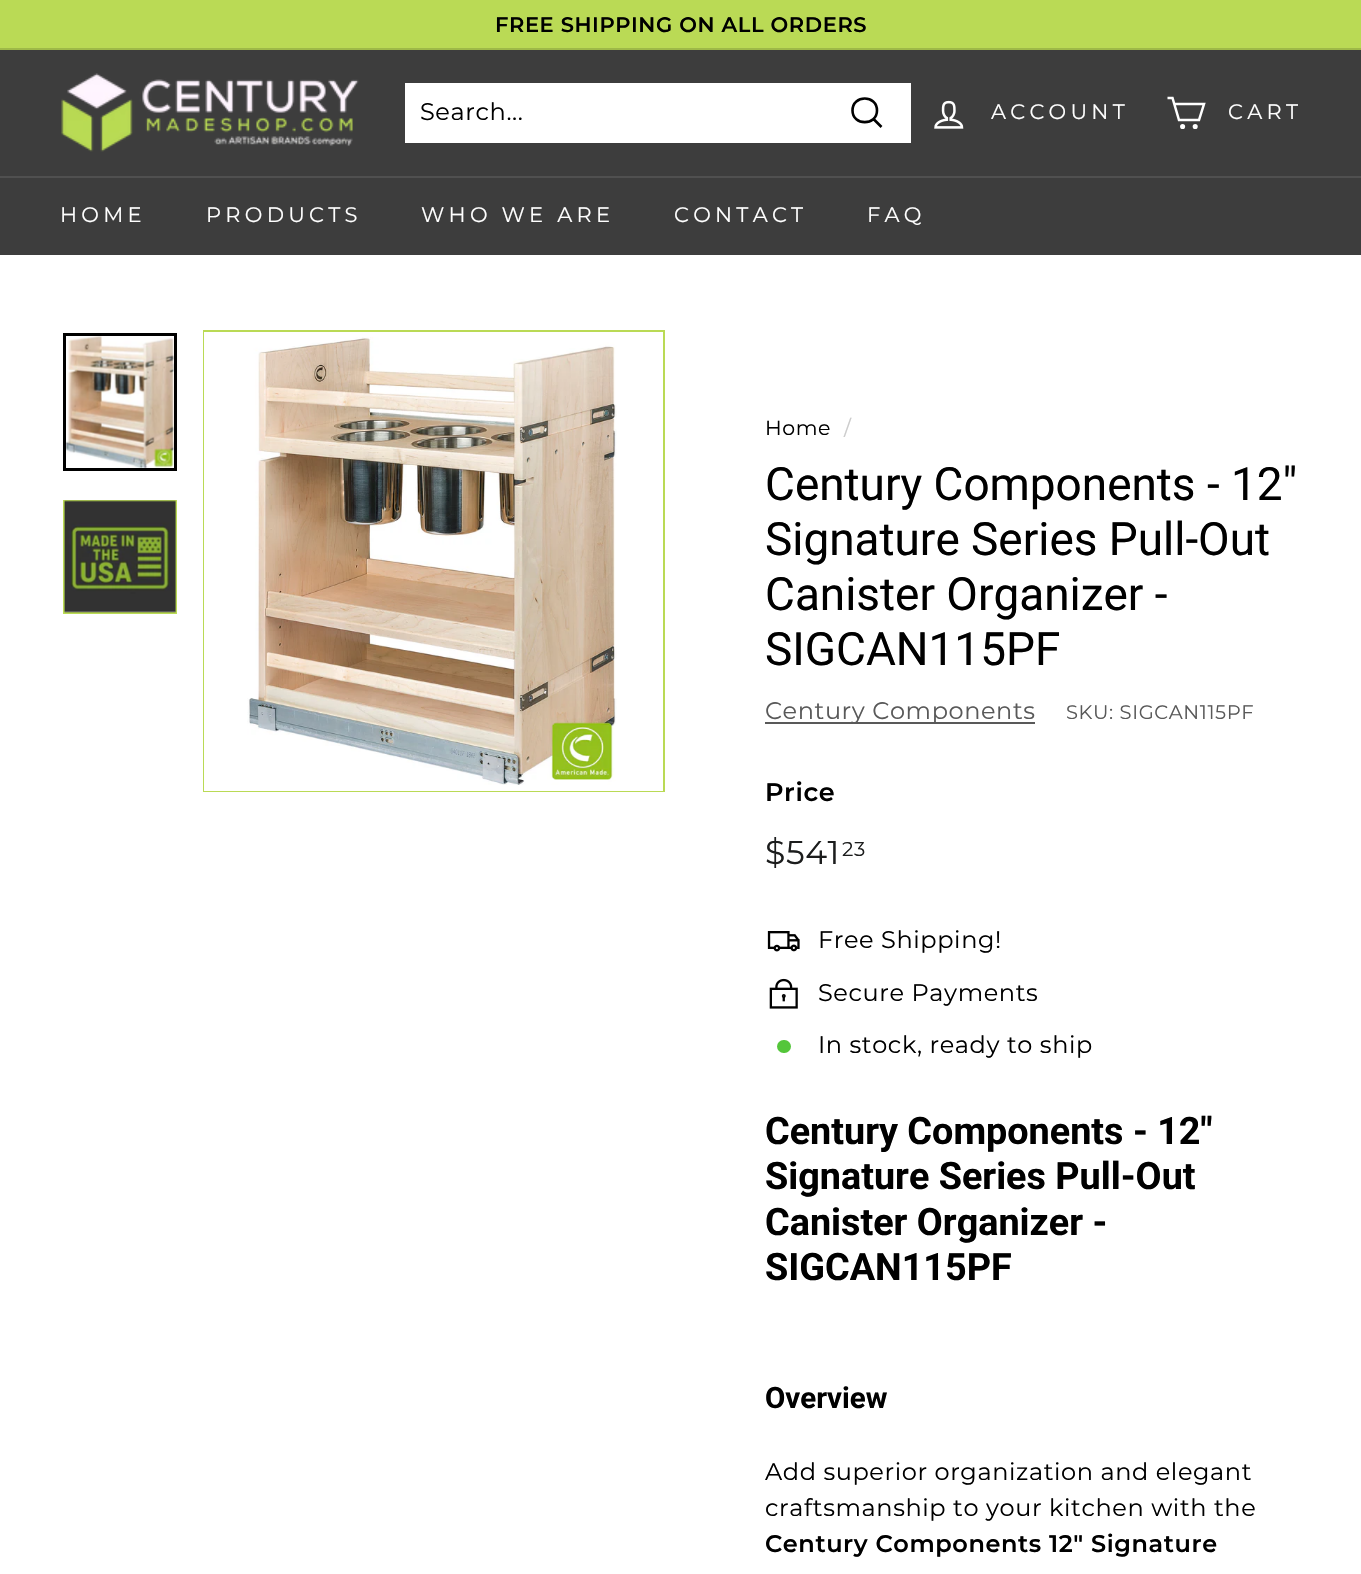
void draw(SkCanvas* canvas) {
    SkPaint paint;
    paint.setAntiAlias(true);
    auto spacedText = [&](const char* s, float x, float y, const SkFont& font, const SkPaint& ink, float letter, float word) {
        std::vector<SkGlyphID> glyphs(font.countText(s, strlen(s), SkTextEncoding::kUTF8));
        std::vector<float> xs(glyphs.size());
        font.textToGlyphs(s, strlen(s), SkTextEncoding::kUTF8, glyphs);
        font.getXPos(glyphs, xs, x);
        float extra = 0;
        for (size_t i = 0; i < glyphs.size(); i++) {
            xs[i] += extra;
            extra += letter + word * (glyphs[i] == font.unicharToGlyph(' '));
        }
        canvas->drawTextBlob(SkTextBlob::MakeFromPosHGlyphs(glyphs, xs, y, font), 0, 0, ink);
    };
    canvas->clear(0xFFFFFFFF);
    paint.setColor(0xFFBADA55);
    canvas->drawRect(SkRect::MakeXYWH(0, 0, 1361, 48), paint);
    SkFont font1(fontMgr->matchFamilyStyle("Montserrat", SkFontStyle(600, SkFontStyle::kNormal_Width, SkFontStyle::kUpright_Slant)), 21);
    font1.setSubpixel(true);
    paint.setColor(0xFF000000);
    spacedText("FREE SHIPPING ON ALL ORDERS", 495, 32, font1, paint, 0.6f, 0);
    paint.setColor(0xFF9EB948);
    canvas->drawRect(SkRect::MakeXYWH(0, 48, 1361, 2), paint);
    paint.setColor(0xFF3D3D3D);
    canvas->drawRect(SkRect::MakeXYWH(0, 50, 1361, 126), paint);
    canvas->drawImageRect(SkImages::DeferredFromEncodedData(SkData::MakeFromFileName("img1.png")), SkRect::MakeXYWH(61, 73, 298, 79), SkSamplingOptions());
    paint.setColor(0xFFFFFFFF);
    canvas->drawRect(SkRect::MakeXYWH(405, 83, 506, 60), paint);
    SkFont font2(fontMgr->matchFamilyStyle("Montserrat", SkFontStyle::Normal()), 24);
    font2.setSubpixel(true);
    paint.setColor(0xFF000000);
    spacedText("Search...", 420, 120, font2, paint, 0.6f, 0);
    paint.setStyle(SkPaint::kStroke_Style);
    paint.setStrokeWidth(2.6f);
    canvas->drawPath(SkPathBuilder().moveTo(877, 110.5f).cubicTo(877, 126, 852.5f, 126, 852.5f, 110.5f).cubicTo(852.5f, 94.5f, 877, 94.5f, 877, 110.5f).close().moveTo(881.5f, 127).lineTo(873.5f, 119).detach(), paint);
    canvas->drawImageRect(SkImages::DeferredFromEncodedData(SkData::MakeFromFileName("img2.png")), SkRect::MakeXYWH(934, 100, 30, 29), SkSamplingOptions());
    SkFont font3(fontMgr->matchFamilyStyle("Montserrat", SkFontStyle::Normal()), 21);
    font3.setSubpixel(true);
    paint.setStyle(SkPaint::kFill_Style);
    paint.setColor(0xFFFFFFFF);
    spacedText("ACCOUNT", 991, 119, font3, paint, 4.25f, 0);
    paint.setStyle(SkPaint::kStroke_Style);
    paint.setStrokeWidth(2.5f);
    canvas->drawPath(SkPathBuilder().moveTo(1174.5f, 104).lineTo(1204, 104).lineTo(1199, 120).lineTo(1179, 120).lineTo(1172.5f, 98).lineTo(1167.5f, 98).detach(), paint);
    canvas->drawCircle(1182.6f, 126.5f, 1.3f, paint);
    canvas->drawCircle(1195.2f, 126.5f, 1.3f, paint);
    paint.setStyle(SkPaint::kFill_Style);
    spacedText("CART", 1228, 119, font3, paint, 4.25f, 0);
    paint.setColor(0xFF505050);
    canvas->drawRect(SkRect::MakeXYWH(0, 176, 1361, 2), paint);
    paint.setColor(0xFF3D3D3D);
    canvas->drawRect(SkRect::MakeXYWH(0, 178, 1361, 77), paint);
    paint.setColor(0xFFFFFFFF);
    spacedText("HOME", 60, 222, font3, paint, 4.25f, 0);
    spacedText("PRODUCTS", 206, 222, font3, paint, 4.25f, 0);
    spacedText("WHO WE ARE", 421, 222, font3, paint, 4.25f, 0);
    spacedText("CONTACT", 674, 222, font3, paint, 4.25f, 0);
    spacedText("FAQ", 867, 222, font3, paint, 4.25f, 0);
    canvas->drawImageRect(SkImages::DeferredFromEncodedData(SkData::MakeFromFileName("img3.png")), SkRect::MakeXYWH(66, 336, 108, 132), SkSamplingOptions());
    paint.setStyle(SkPaint::kStroke_Style);
    paint.setStrokeWidth(3);
    paint.setColor(0xFF000000);
    canvas->drawRect(SkRect::MakeXYWH(64.5f, 334.5f, 111, 135), paint);
    paint.setStrokeWidth(2);
    paint.setColor(0xFFBADA55);
    canvas->drawRect(SkRect::MakeXYWH(64, 501, 112, 112), paint);
    canvas->drawImageRect(SkImages::DeferredFromEncodedData(SkData::MakeFromFileName("img4.png")), SkRect::MakeXYWH(64, 500, 112, 113), SkSamplingOptions());
    canvas->drawRect(SkRect::MakeXYWH(204, 331, 460, 460), paint);
    paint.setStyle(SkPaint::kFill_Style);
    paint.setColor(0xFFFFFFFF);
    canvas->drawRect(SkRect::MakeXYWH(204, 332, 459, 459), paint);
    canvas->drawImageRect(SkImages::DeferredFromEncodedData(SkData::MakeFromFileName("img5.png")), SkRect::MakeXYWH(247, 337, 370, 448), SkSamplingOptions());
    SkFont font4(fontMgr->matchFamilyStyle("Montserrat", SkFontStyle::Normal()), 20.5f);
    font4.setSubpixel(true);
    paint.setColor(0xFF000000);
    spacedText("Home", 765, 435, font4, paint, 0.6f, 0);
    paint.setColor(0xFFCCCCCC);
    spacedText("/", 844, 435, font4, paint, 0.6f, 0);
    SkFont font5(fontMgr->matchFamilyStyle("Roboto", SkFontStyle::Normal()), 45.9f);
    font5.setSubpixel(true);
    paint.setColor(0xFF000000);
    canvas->drawString("Century Components - 12\"", 765, 500, font5, paint);
    canvas->drawString("Signature Series Pull-Out", 765, 555, font5, paint);
    canvas->drawString("Canister Organizer -", 765, 610, font5, paint);
    canvas->drawString("SIGCAN115PF", 765, 665, font5, paint);
    paint.setColor(0xFF595959);
    canvas->drawRect(SkRect::MakeXYWH(765, 722, 270, 2), paint);
    spacedText("Century Components", 765, 719, font2, paint, 0.6f, 0);
    SkFont font6(fontMgr->matchFamilyStyle("Montserrat", SkFontStyle::Normal()), 19.5f);
    font6.setSubpixel(true);
    spacedText("SKU: SIGCAN115PF", 1066, 719, font6, paint, 0.6f, 0);
    SkFont font7(fontMgr->matchFamilyStyle("Montserrat", SkFontStyle(600, SkFontStyle::kNormal_Width, SkFontStyle::kUpright_Slant)), 25.5f);
    font7.setSubpixel(true);
    paint.setColor(0xFF000000);
    spacedText("Price", 765, 801, font7, paint, 0.6f, 0);
    SkFont font8(fontMgr->matchFamilyStyle("Montserrat", SkFontStyle::Normal()), 33);
    font8.setSubpixel(true);
    paint.setColor(0xFF1C1D1D);
    spacedText("$541", 765, 864, font8, paint, 0.6f, 0);
    SkFont font9(fontMgr->matchFamilyStyle("Montserrat", SkFontStyle::Normal()), 20);
    font9.setSubpixel(true);
    spacedText("23", 842, 856, font9, paint, 0.6f, 0);
    canvas->drawImageRect(SkImages::DeferredFromEncodedData(SkData::MakeFromFileName("img6.png")), SkRect::MakeXYWH(767, 931, 33, 21), SkSamplingOptions());
    paint.setColor(0xFF000000);
    spacedText("Free Shipping!", 818, 948, font2, paint, 0.6f, 0);
    canvas->drawImageRect(SkImages::DeferredFromEncodedData(SkData::MakeFromFileName("img7.png")), SkRect::MakeXYWH(769, 978, 29, 31), SkSamplingOptions());
    spacedText("Secure Payments", 818, 1001, font2, paint, 0.6f, 0);
    paint.setColor(0xFF54C63A);
    canvas->drawRoundRect(SkRect::MakeXYWH(777, 1040, 14, 13), 6.5f, 6.5f, paint);
    paint.setColor(0xFF000000);
    spacedText("In stock, ready to ship", 818, 1053, font2, paint, 0.6f, 0);
    SkFont font10(fontMgr->matchFamilyStyle("Roboto", SkFontStyle::Bold()), 37.75f);
    font10.setSubpixel(true);
    canvas->drawString("Century Components - 12\"", 765, 1144, font10, paint);
    canvas->drawString("Signature Series Pull-Out", 765, 1189, font10, paint);
    canvas->drawString("Canister Organizer -", 765, 1235, font10, paint);
    canvas->drawString("SIGCAN115PF", 765, 1280, font10, paint);
    SkFont font11(fontMgr->matchFamilyStyle("Roboto", SkFontStyle::Bold()), 29.5f);
    font11.setSubpixel(true);
    canvas->drawString("Overview", 765, 1408, font11, paint);
    spacedText("Add superior organization and elegant", 765, 1480, font2, paint, 0.6f, 0);
    spacedText("craftsmanship to your kitchen with the", 765, 1516, font2, paint, 0.6f, 0);
    SkFont font12(fontMgr->matchFamilyStyle("Montserrat", SkFontStyle(600, SkFontStyle::kNormal_Width, SkFontStyle::kUpright_Slant)), 24);
    font12.setSubpixel(true);
    spacedText("Century Components 12\" Signature", 765, 1552, font12, paint, 0.6f, 0);
}
